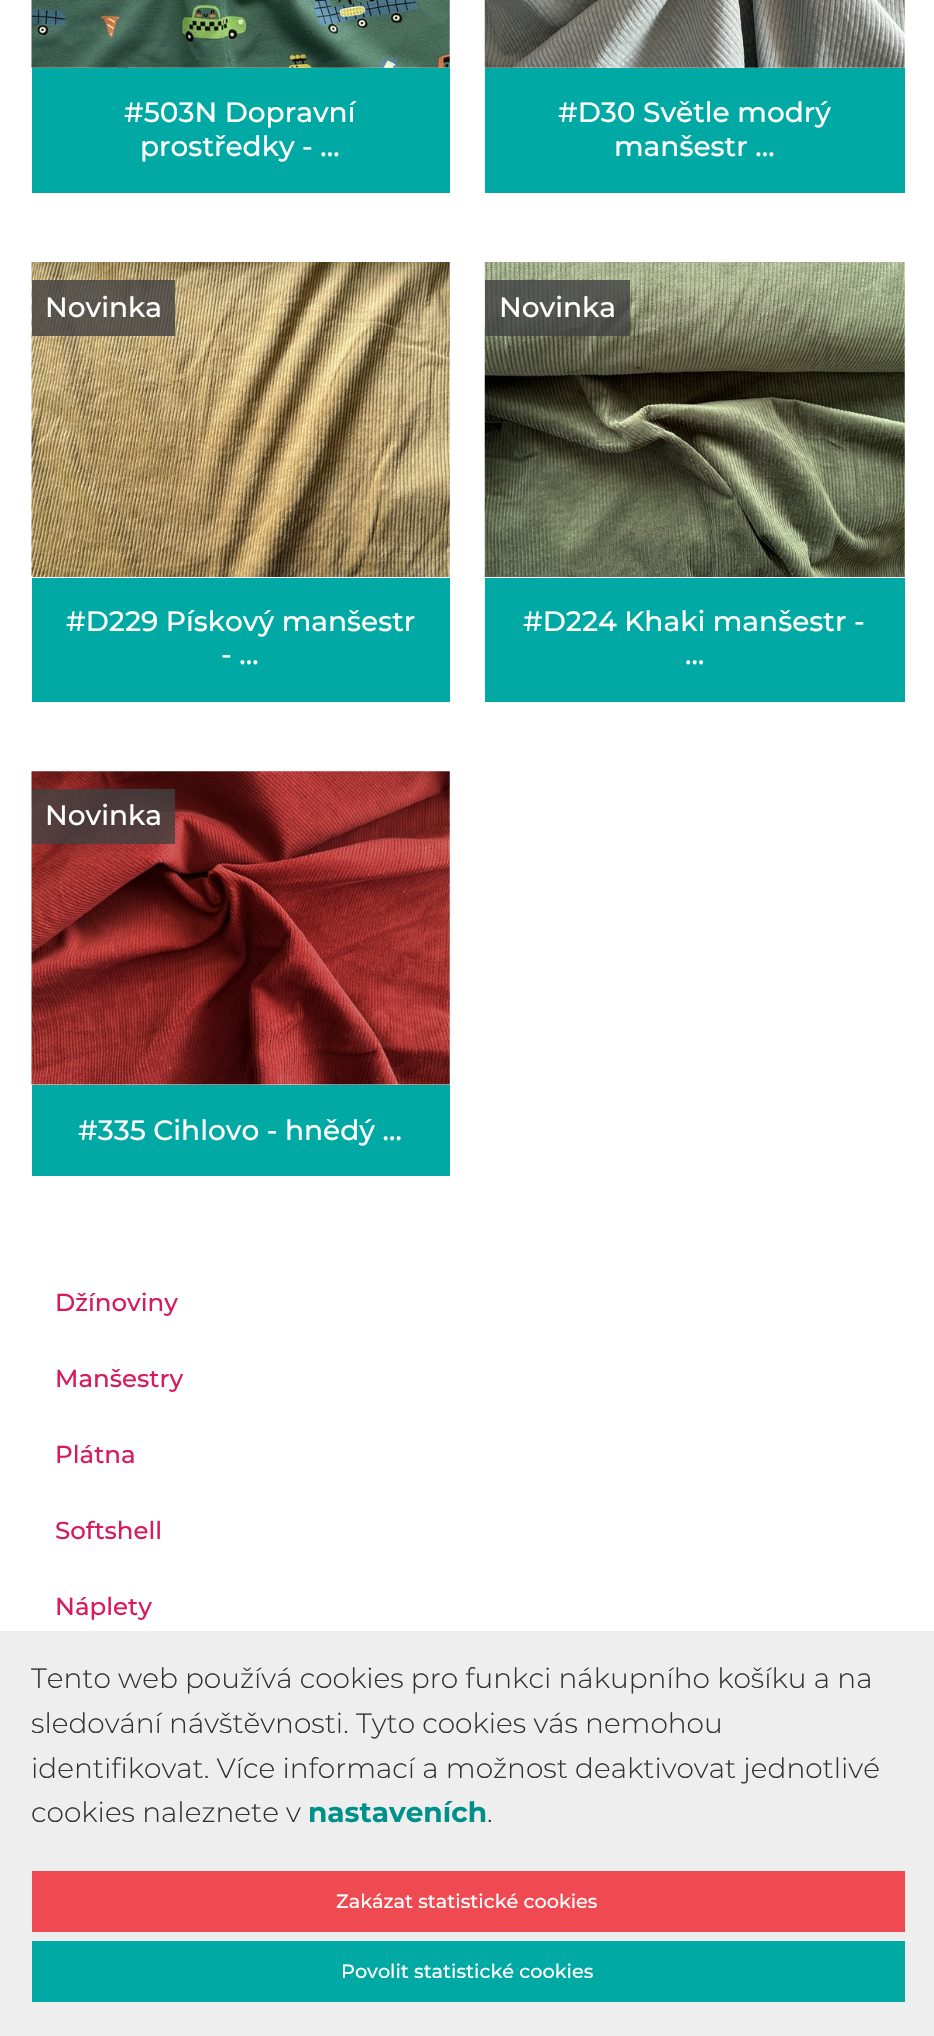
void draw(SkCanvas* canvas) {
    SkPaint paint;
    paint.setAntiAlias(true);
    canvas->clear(0xFFFFFFFF);
    canvas->drawImageRect(SkImages::DeferredFromEncodedData(SkData::MakeFromFileName("img1.png")), SkRect::MakeXYWH(31, 0, 419, 68), SkSamplingOptions());
    paint.setColor(0xFF00A9A3);
    canvas->drawRect(SkRect::MakeXYWH(32, 68, 418, 125), paint);
    SkFont font1(fontMgr->matchFamilyStyle("Montserrat", SkFontStyle(500, SkFontStyle::kNormal_Width, SkFontStyle::kUpright_Slant)), 28);
    font1.setSubpixel(true);
    paint.setColor(0xFFFFFFFF);
    canvas->drawString("#503N Dopravní", 124, 122, font1, paint);
    canvas->drawString("prostředky - …", 140, 156, font1, paint);
    canvas->drawImageRect(SkImages::DeferredFromEncodedData(SkData::MakeFromFileName("img2.png")), SkRect::MakeXYWH(484, 0, 421, 68), SkSamplingOptions());
    paint.setColor(0xFF00A9A3);
    canvas->drawRect(SkRect::MakeXYWH(485, 68, 420, 125), paint);
    paint.setColor(0xFFFFFFFF);
    canvas->drawString("#D30 Světle modrý", 558, 122, font1, paint);
    canvas->drawString("manšestr …", 614, 156, font1, paint);
    canvas->drawImageRect(SkImages::DeferredFromEncodedData(SkData::MakeFromFileName("img3.png")), SkRect::MakeXYWH(31, 262, 419, 315), SkSamplingOptions());
    paint.setColor(0xCC404041);
    canvas->drawRect(SkRect::MakeXYWH(32, 280, 143, 56), paint);
    paint.setColor(0xFFFFFFFF);
    canvas->drawString("Novinka", 45, 317, font1, paint);
    paint.setColor(0xFF00A9A3);
    canvas->drawRect(SkRect::MakeXYWH(32, 578, 418, 124), paint);
    paint.setColor(0xFFFFFFFF);
    canvas->drawString("#D229 Pískový manšestr", 66, 631, font1, paint);
    canvas->drawString("- …", 221, 664, font1, paint);
    canvas->drawImageRect(SkImages::DeferredFromEncodedData(SkData::MakeFromFileName("img4.png")), SkRect::MakeXYWH(484, 262, 421, 315), SkSamplingOptions());
    paint.setColor(0xCC404041);
    canvas->drawRect(SkRect::MakeXYWH(485, 280, 145, 56), paint);
    paint.setColor(0xFFFFFFFF);
    canvas->drawString("Novinka", 499, 317, font1, paint);
    paint.setColor(0xFF00A9A3);
    canvas->drawRect(SkRect::MakeXYWH(485, 578, 420, 124), paint);
    paint.setColor(0xFFFFFFFF);
    canvas->drawString("#D224 Khaki manšestr -", 523, 631, font1, paint);
    canvas->drawString("…", 685, 664, font1, paint);
    canvas->drawImageRect(SkImages::DeferredFromEncodedData(SkData::MakeFromFileName("img5.png")), SkRect::MakeXYWH(31, 771, 419, 314), SkSamplingOptions());
    paint.setColor(0xCC404041);
    canvas->drawRect(SkRect::MakeXYWH(32, 789, 143, 55), paint);
    paint.setColor(0xFFFFFFFF);
    canvas->drawString("Novinka", 45, 825, font1, paint);
    paint.setColor(0xFF00A9A3);
    canvas->drawRect(SkRect::MakeXYWH(32, 1085, 418, 91), paint);
    paint.setColor(0xFFFFFFFF);
    canvas->drawString("#335 Cihlovo - hnědý …", 78, 1140, font1, paint);
    SkFont font2(fontMgr->matchFamilyStyle("Montserrat", SkFontStyle(500, SkFontStyle::kNormal_Width, SkFontStyle::kUpright_Slant)), 24.5f);
    font2.setSubpixel(true);
    paint.setColor(0xFFD91B5B);
    canvas->drawString("Džínoviny", 55, 1311, font2, paint);
    canvas->drawString("Manšestry", 55, 1387, font2, paint);
    canvas->drawString("Plátna", 55, 1463, font2, paint);
    canvas->drawString("Softshell", 55, 1539, font2, paint);
    canvas->drawString("Náplety", 55, 1615, font2, paint);
    paint.setColor(0xFFEEEEEE);
    canvas->drawRect(SkRect::MakeXYWH(0, 1631, 934, 405), paint);
    SkFont font3(fontMgr->matchFamilyStyle("Montserrat", SkFontStyle(300, SkFontStyle::kNormal_Width, SkFontStyle::kUpright_Slant)), 28);
    font3.setSubpixel(true);
    paint.setColor(0xFF333333);
    canvas->drawString("Tento web používá cookies pro funkci nákupního košíku a na", 31, 1688, font3, paint);
    canvas->drawString("sledování návštěvnosti. Tyto cookies vás nemohou", 31, 1733, font3, paint);
    canvas->drawString("identifikovat. Více informací a možnost deaktivovat jednotlivé", 31, 1778, font3, paint);
    canvas->drawString("cookies naleznete v", 31, 1822, font3, paint);
    SkFont font4(fontMgr->matchFamilyStyle("Montserrat", SkFontStyle::Bold()), 28);
    font4.setSubpixel(true);
    paint.setColor(0xFF00908B);
    canvas->drawString("nastaveních", 308, 1822, font4, paint);
    paint.setColor(0xFF333333);
    canvas->drawString(".", 487, 1822, font3, paint);
    paint.setColor(0xFFEF4A52);
    canvas->drawRect(SkRect::MakeXYWH(32, 1871, 873, 61), paint);
    SkFont font5(fontMgr->matchFamilyStyle("Montserrat", SkFontStyle(500, SkFontStyle::kNormal_Width, SkFontStyle::kUpright_Slant)), 19.25f);
    font5.setSubpixel(true);
    paint.setColor(0xFFFFFFFF);
    canvas->drawString("Zakázat statistické cookies", 336, 1908, font5, paint);
    paint.setColor(0xFF00A9A3);
    canvas->drawRect(SkRect::MakeXYWH(32, 1941, 873, 61), paint);
    paint.setColor(0xFFFFFFFF);
    canvas->drawString("Povolit statistické cookies", 341, 1978, font5, paint);
}
